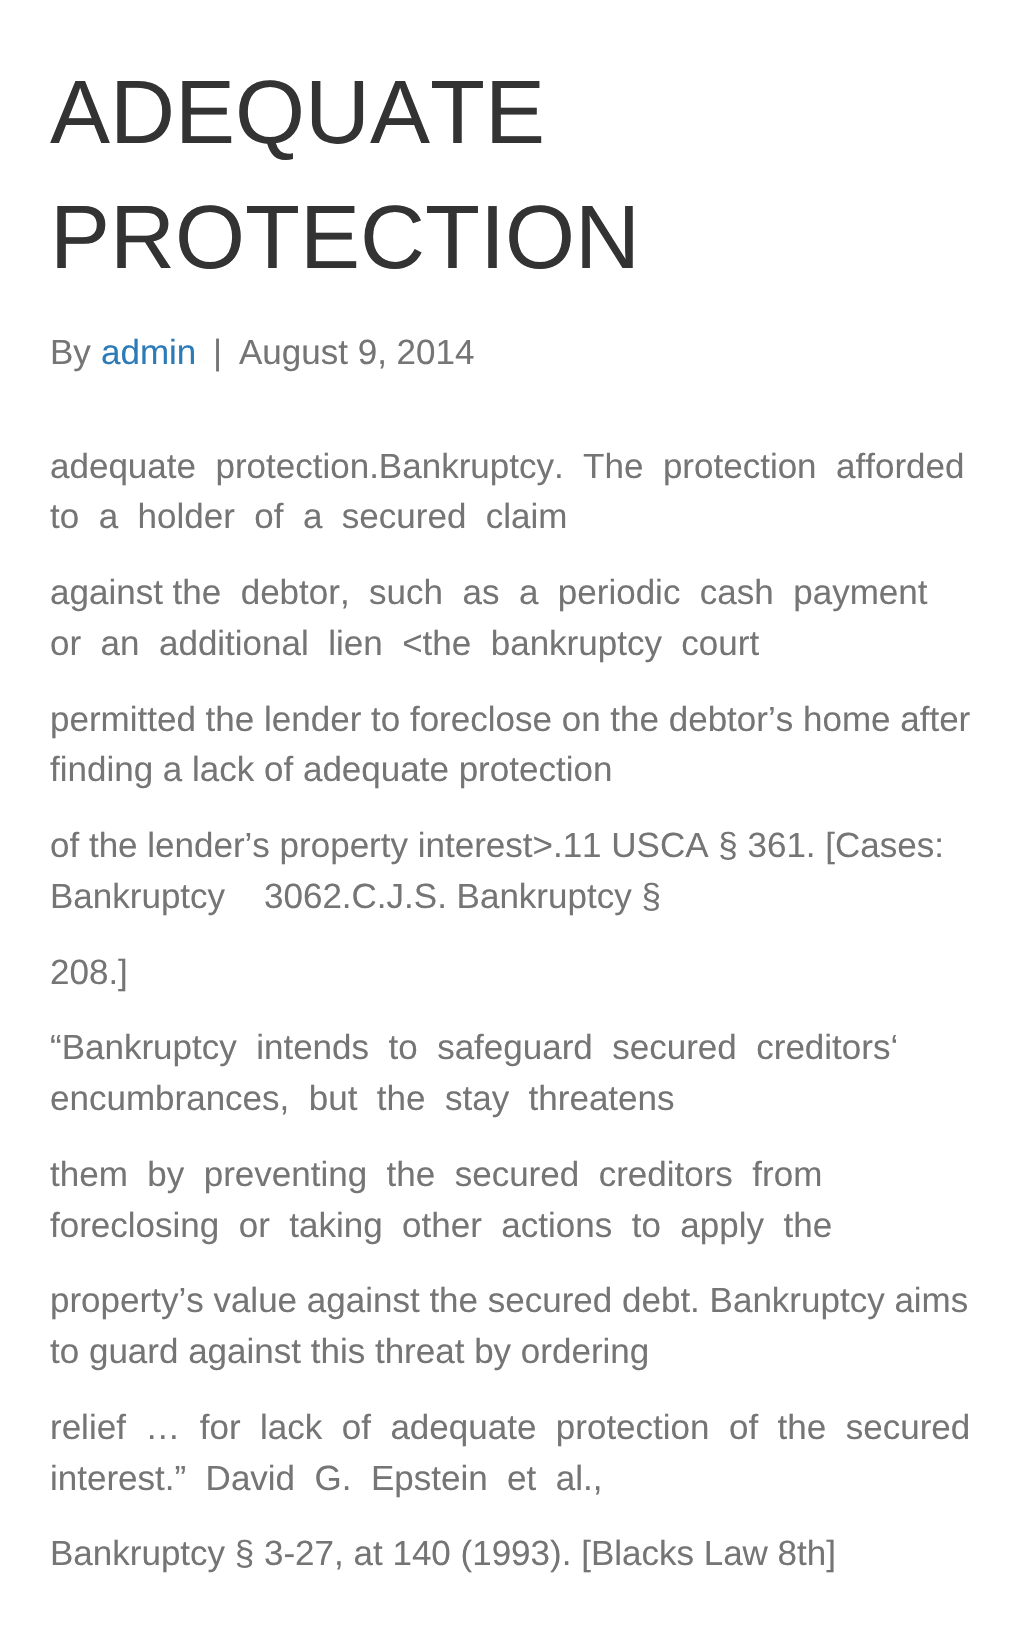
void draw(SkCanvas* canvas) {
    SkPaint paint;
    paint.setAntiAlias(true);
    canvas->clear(0xFFFFFFFF);
    SkFont font1(fontMgr->matchFamilyStyle("Liberation Sans", SkFontStyle::Normal()), 90);
    font1.setSubpixel(true);
    paint.setColor(0xFF333333);
    canvas->drawString("ADEQUATE", 50, 143, font1, paint);
    canvas->drawString("PROTECTION", 50, 268, font1, paint);
    SkFont font2(fontMgr->matchFamilyStyle("Liberation Sans", SkFontStyle::Normal()), 35);
    font2.setSubpixel(true);
    paint.setColor(0xFF757575);
    canvas->drawString("By", 50, 364, font2, paint);
    paint.setColor(0xFF2B7BB9);
    canvas->drawString("admin", 101, 364, font2, paint);
    paint.setColor(0xFF757575);
    canvas->drawString("|", 213, 364, font2, paint);
    canvas->drawString("August 9, 2014", 239, 364, font2, paint);
    canvas->drawString("adequate  protection.Bankruptcy.  The  protection  afforded", 50, 478, font2, paint);
    canvas->drawString("to  a  holder  of  a  secured  claim", 50, 528, font2, paint);
    canvas->drawString("against the  debtor,  such  as  a  periodic  cash  payment", 50, 604, font2, paint);
    canvas->drawString("or  an  additional  lien  <the  bankruptcy  court", 50, 655, font2, paint);
    canvas->drawString("permitted the lender to foreclose on the debtor’s home after", 50, 731, font2, paint);
    canvas->drawString("finding a lack of adequate protection", 50, 781, font2, paint);
    canvas->drawString("of the lender’s property interest>.11 USCA § 361. [Cases:", 50, 857, font2, paint);
    canvas->drawString("Bankruptcy    3062.C.J.S. Bankruptcy §", 50, 908, font2, paint);
    canvas->drawString("208.]", 50, 984, font2, paint);
    canvas->drawString("“Bankruptcy  intends  to  safeguard  secured  creditors‘", 50, 1059, font2, paint);
    canvas->drawString("encumbrances,  but  the  stay  threatens", 50, 1110, font2, paint);
    canvas->drawString("them  by  preventing  the  secured  creditors  from", 50, 1186, font2, paint);
    canvas->drawString("foreclosing  or  taking  other  actions  to  apply  the", 50, 1237, font2, paint);
    canvas->drawString("property’s value against the secured debt. Bankruptcy aims", 50, 1312, font2, paint);
    canvas->drawString("to guard against this threat by ordering", 50, 1363, font2, paint);
    canvas->drawString("relief  …  for  lack  of  adequate  protection  of  the  secured", 50, 1439, font2, paint);
    canvas->drawString("interest.”  David  G.  Epstein  et  al.,", 50, 1490, font2, paint);
    canvas->drawString("Bankruptcy § 3-27, at 140 (1993). [Blacks Law 8th]", 50, 1565, font2, paint);
}
